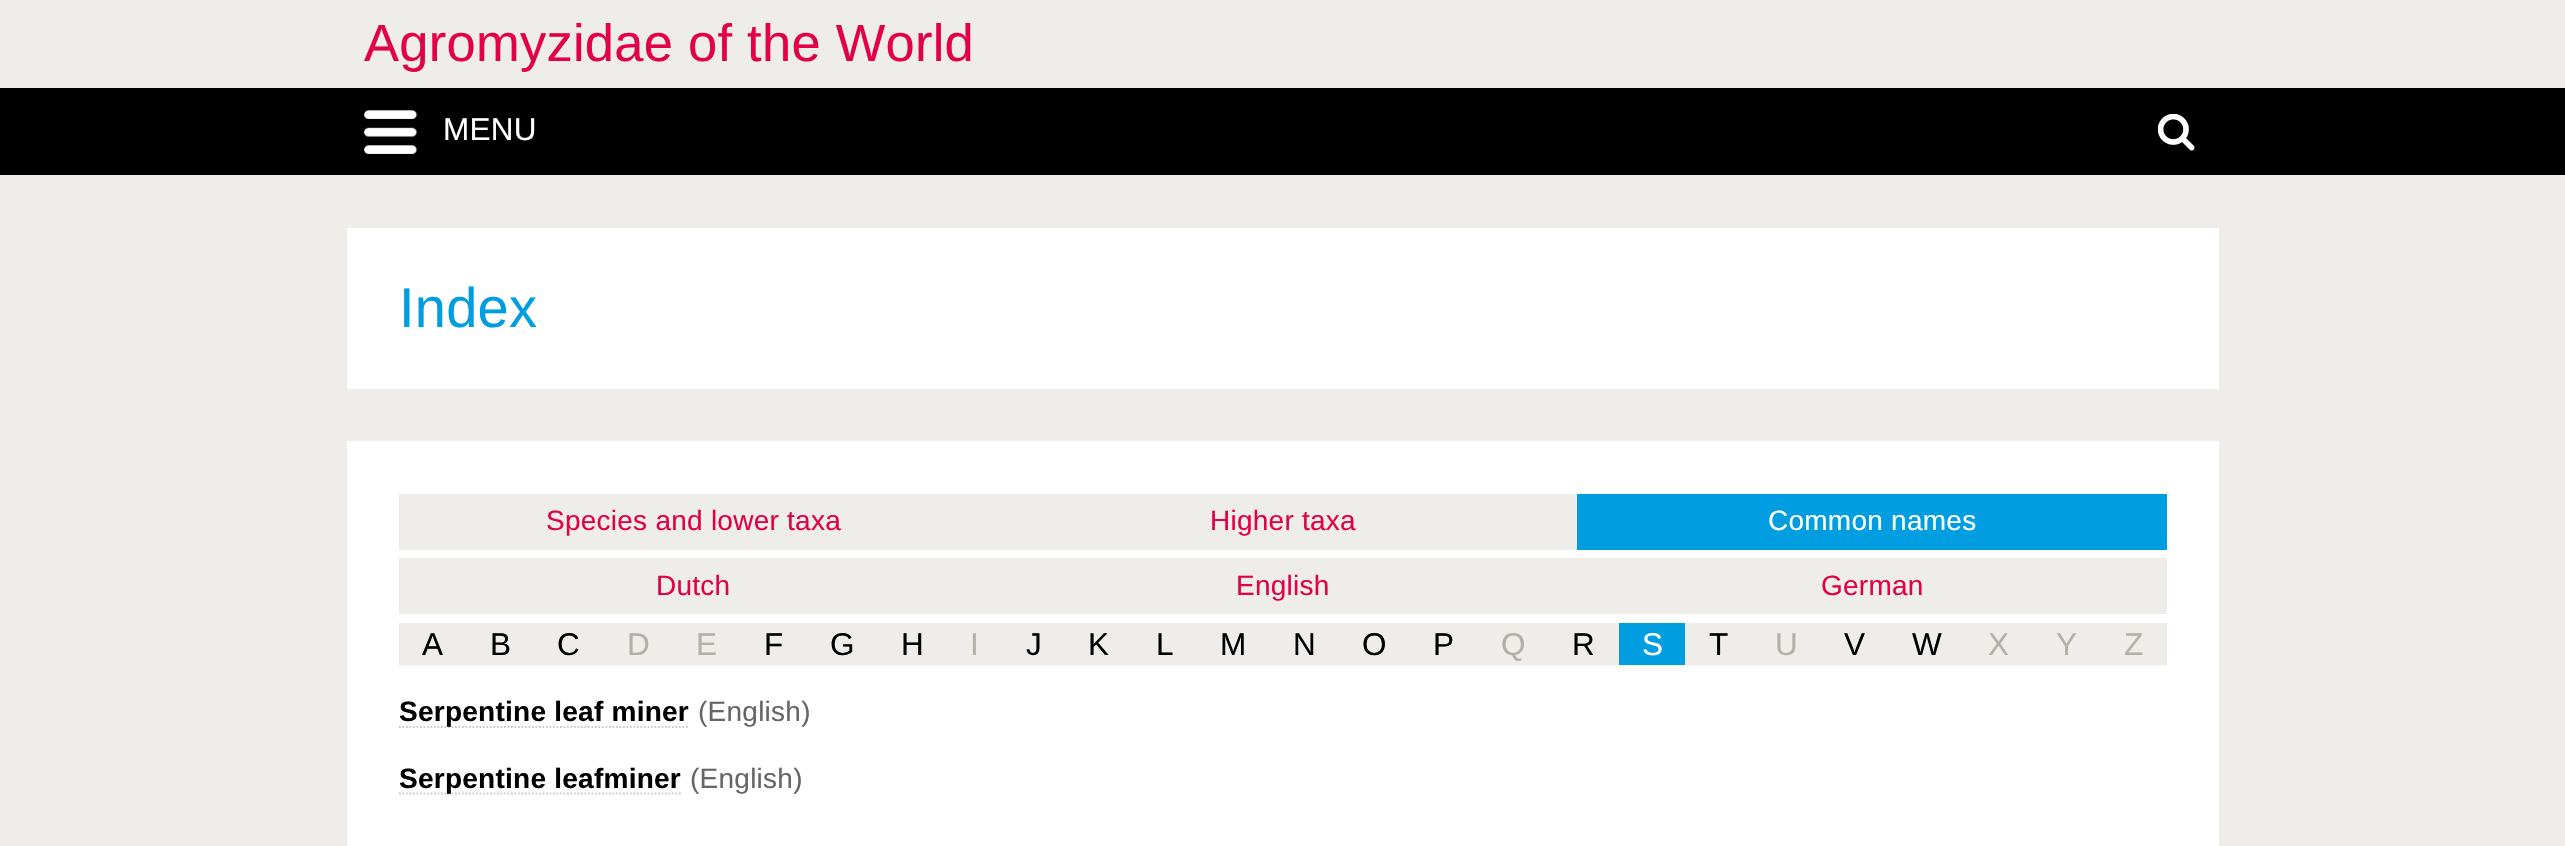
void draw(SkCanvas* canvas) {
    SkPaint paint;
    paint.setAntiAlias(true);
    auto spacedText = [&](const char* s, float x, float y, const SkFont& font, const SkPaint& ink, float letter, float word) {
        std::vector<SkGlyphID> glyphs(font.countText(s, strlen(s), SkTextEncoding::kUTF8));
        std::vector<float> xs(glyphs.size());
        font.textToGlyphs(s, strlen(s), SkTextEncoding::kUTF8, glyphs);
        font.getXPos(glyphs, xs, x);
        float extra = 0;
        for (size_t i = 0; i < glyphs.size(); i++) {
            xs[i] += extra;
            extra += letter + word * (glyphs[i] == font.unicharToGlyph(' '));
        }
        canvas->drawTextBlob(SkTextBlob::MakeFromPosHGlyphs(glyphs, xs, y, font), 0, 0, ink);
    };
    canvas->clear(0xFFEEEDE9);
    SkFont font1(fontMgr->matchFamilyStyle("Liberation Sans", SkFontStyle::Normal()), 52.5f);
    font1.setSubpixel(true);
    paint.setColor(0xFFE3004A);
    spacedText("Agromyzidae of the World", 364, 61, font1, paint, 0.25f, 0);
    paint.setColor(0xFF000000);
    canvas->drawRect(SkRect::MakeXYWH(0, 88, 2565, 87), paint);
    canvas->drawImageRect(SkImages::DeferredFromEncodedData(SkData::MakeFromFileName("img1.png")), SkRect::MakeXYWH(364, 110, 53, 44), SkSamplingOptions());
    SkFont font2(fontMgr->matchFamilyStyle("Liberation Sans", SkFontStyle::Normal()), 31.5f);
    font2.setSubpixel(true);
    paint.setColor(0xFFFFFFFF);
    spacedText("MENU", 443, 140, font2, paint, 0.25f, 0);
    canvas->drawImageRect(SkImages::DeferredFromEncodedData(SkData::MakeFromFileName("img2.png")), SkRect::MakeXYWH(2158, 114, 37, 37), SkSamplingOptions());
    canvas->drawRect(SkRect::MakeXYWH(347, 228, 1872, 161), paint);
    SkFont font3(fontMgr->matchFamilyStyle("Liberation Sans", SkFontStyle::Normal()), 56);
    font3.setSubpixel(true);
    paint.setColor(0xFF009EE0);
    spacedText("Index", 399, 327, font3, paint, 0.25f, 0);
    paint.setColor(0xFFFFFFFF);
    canvas->drawRect(SkRect::MakeXYWH(347, 441, 1872, 405), paint);
    paint.setColor(0xFFEEEDE9);
    canvas->drawRect(SkRect::MakeXYWH(399, 494, 1178, 56), paint);
    SkFont font4(fontMgr->matchFamilyStyle("Liberation Sans", SkFontStyle::Normal()), 28);
    font4.setSubpixel(true);
    paint.setColor(0xFFE3004A);
    spacedText("Species and lower taxa", 546, 530, font4, paint, 0.25f, 0);
    spacedText("Higher taxa", 1210, 530, font4, paint, 0.25f, 0);
    paint.setColor(0xFF009EE0);
    canvas->drawRect(SkRect::MakeXYWH(1577, 494, 590, 56), paint);
    paint.setColor(0xFFFFFFFF);
    spacedText("Common names", 1768, 530, font4, paint, 0.25f, 0);
    paint.setColor(0xFFEEEDE9);
    canvas->drawRect(SkRect::MakeXYWH(399, 558, 1768, 56), paint);
    paint.setColor(0xFFE3004A);
    spacedText("Dutch", 656, 595, font4, paint, 0.25f, 0);
    spacedText("English", 1236, 595, font4, paint, 0.25f, 0);
    spacedText("German", 1821, 595, font4, paint, 0.25f, 0);
    paint.setColor(0xFFEEEDE9);
    canvas->drawRect(SkRect::MakeXYWH(399, 623, 1768, 42), paint);
    paint.setColor(0xFFF9F9F7);
    canvas->drawRect(SkRect::MakeXYWH(399, 665, 1768, 2), paint);
    paint.setColor(0xFF000000);
    spacedText("A", 422, 655, font2, paint, 0.25f, 0);
    spacedText("B", 490, 655, font2, paint, 0.25f, 0);
    spacedText("C", 557, 655, font2, paint, 0.25f, 0);
    paint.setColor(0xFFB2B1A8);
    spacedText("D", 627, 655, font2, paint, 0.25f, 0);
    spacedText("E", 696, 655, font2, paint, 0.25f, 0);
    paint.setColor(0xFF000000);
    spacedText("F", 764, 655, font2, paint, 0.25f, 0);
    spacedText("G", 830, 655, font2, paint, 0.25f, 0);
    spacedText("H", 901, 655, font2, paint, 0.25f, 0);
    paint.setColor(0xFFB2B1A8);
    spacedText("I", 970, 655, font2, paint, 0.25f, 0);
    paint.setColor(0xFF000000);
    spacedText("J", 1026, 655, font2, paint, 0.25f, 0);
    spacedText("K", 1088, 655, font2, paint, 0.25f, 0);
    spacedText("L", 1156, 655, font2, paint, 0.25f, 0);
    spacedText("M", 1220, 655, font2, paint, 0.25f, 0);
    spacedText("N", 1293, 655, font2, paint, 0.25f, 0);
    spacedText("O", 1362, 655, font2, paint, 0.25f, 0);
    spacedText("P", 1433, 655, font2, paint, 0.25f, 0);
    paint.setColor(0xFFB2B1A8);
    spacedText("Q", 1501, 655, font2, paint, 0.25f, 0);
    paint.setColor(0xFF000000);
    spacedText("R", 1572, 655, font2, paint, 0.25f, 0);
    paint.setColor(0xFF009EE0);
    canvas->drawRect(SkRect::MakeXYWH(1619, 623, 66, 42), paint);
    paint.setColor(0xFFFFFFFF);
    spacedText("S", 1642, 655, font2, paint, 0.25f, 0);
    paint.setColor(0xFF000000);
    spacedText("T", 1709, 655, font2, paint, 0.25f, 0);
    paint.setColor(0xFFB2B1A8);
    spacedText("U", 1775, 655, font2, paint, 0.25f, 0);
    paint.setColor(0xFF000000);
    spacedText("V", 1844, 655, font2, paint, 0.25f, 0);
    spacedText("W", 1912, 655, font2, paint, 0.25f, 0);
    paint.setColor(0xFFB2B1A8);
    spacedText("X", 1988, 655, font2, paint, 0.25f, 0);
    spacedText("Y", 2056, 655, font2, paint, 0.25f, 0);
    spacedText("Z", 2124, 655, font2, paint, 0.25f, 0);
    paint.setStyle(SkPaint::kStroke_Style);
    paint.setStrokeWidth(1.8f);
    paint.setColor(0xFFCCCCCC);
    paint.setPathEffect(SkDashPathEffect::Make({{1.75f, 1.75f}}, 0));
    canvas->drawPath(SkPathBuilder().moveTo(399, 727).lineTo(689.5f, 727).detach(), paint);
    paint.setPathEffect(nullptr);
    SkFont font5(fontMgr->matchFamilyStyle("Liberation Sans", SkFontStyle::Bold()), 28);
    font5.setSubpixel(true);
    paint.setStyle(SkPaint::kFill_Style);
    paint.setColor(0xFF000000);
    spacedText("Serpentine leaf miner", 399, 721, font5, paint, 0.25f, 0);
    paint.setColor(0xFF666666);
    spacedText("(English)", 698, 721, font4, paint, 0.25f, 0);
    paint.setStyle(SkPaint::kStroke_Style);
    paint.setColor(0xFFCCCCCC);
    paint.setPathEffect(SkDashPathEffect::Make({{1.75f, 1.75f}}, 0));
    canvas->drawPath(SkPathBuilder().moveTo(399, 793.5f).lineTo(681, 793.5f).detach(), paint);
    paint.setPathEffect(nullptr);
    paint.setStyle(SkPaint::kFill_Style);
    paint.setColor(0xFF000000);
    spacedText("Serpentine leafminer", 399, 788, font5, paint, 0.25f, 0);
    paint.setColor(0xFF666666);
    spacedText("(English)", 690, 788, font4, paint, 0.25f, 0);
}
